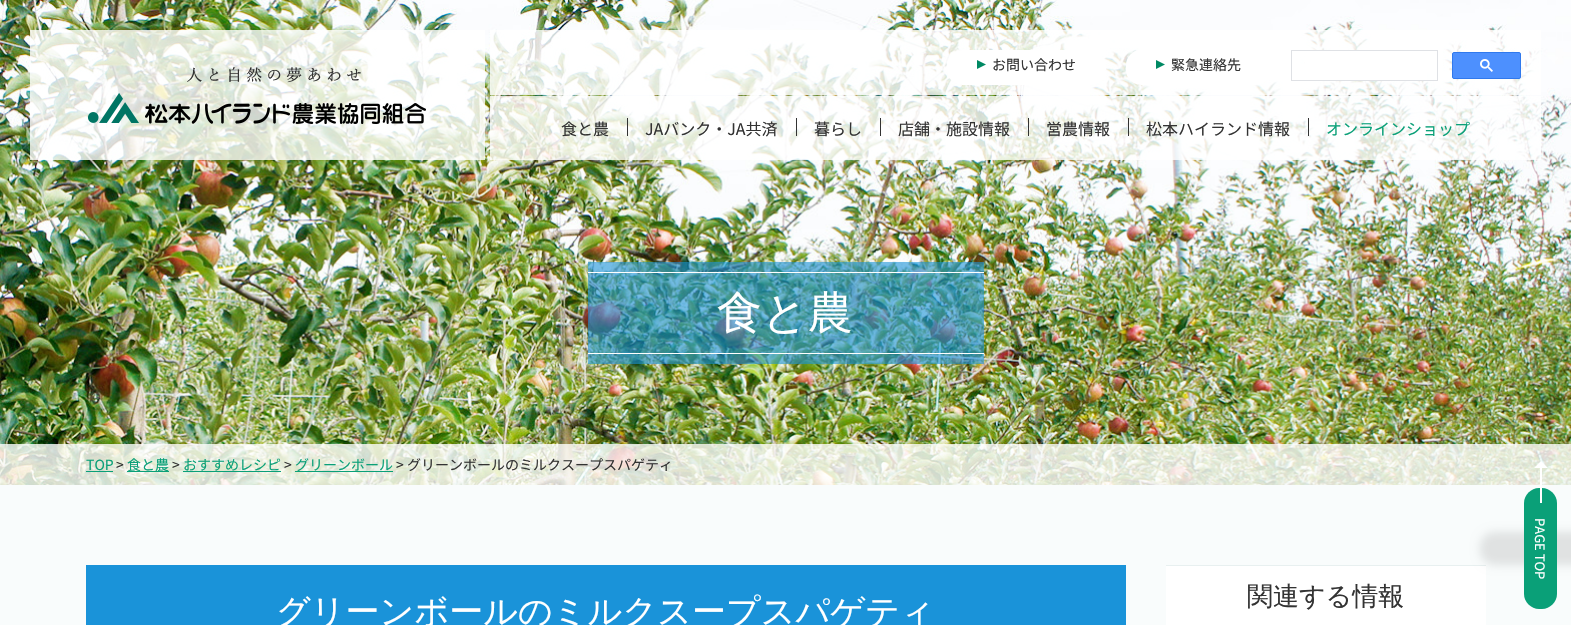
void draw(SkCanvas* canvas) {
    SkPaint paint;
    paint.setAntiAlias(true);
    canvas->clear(0xFFF9FCFC);
    canvas->drawImageRect(SkImages::DeferredFromEncodedData(SkData::MakeFromFileName("img4.png")), SkRect::MakeXYWH(0, 0, 1571, 485), SkSamplingOptions());
    paint.setColor(0xCCFFFFFF);
    canvas->drawRect(SkRect::MakeXYWH(30, 30, 455, 130), paint);
    canvas->drawImageRect(SkImages::DeferredFromEncodedData(SkData::MakeFromFileName("img1.png")), SkRect::MakeXYWH(88, 67, 338, 57), SkSamplingOptions());
    canvas->drawRect(SkRect::MakeXYWH(490, 30, 1051, 65), paint);
    paint.setColor(0xFFFFFFFF);
    canvas->drawRoundRect(SkRect::MakeXYWH(947, 50, 159, 35), 15, 15, paint);
    canvas->drawImageRect(SkImages::DeferredFromEncodedData(SkData::MakeFromFileName("img2.png")), SkRect::MakeXYWH(977, 60, 9, 9), SkSamplingOptions());
    SkFont font1(fontMgr->matchFamilyStyle("Noto Sans JP", SkFontStyle::Normal()), 14);
    font1.setSubpixel(true);
    paint.setColor(0xFF333333);
    canvas->drawString("お問い合わせ", 992, 70, font1, paint);
    paint.setColor(0xFFFFFFFF);
    canvas->drawRoundRect(SkRect::MakeXYWH(1126, 50, 145, 35), 15, 15, paint);
    canvas->drawImageRect(SkImages::DeferredFromEncodedData(SkData::MakeFromFileName("img2.png")), SkRect::MakeXYWH(1156, 60, 9, 9), SkSamplingOptions());
    paint.setColor(0xFF333333);
    canvas->drawString("緊急連絡先", 1171, 70, font1, paint);
    paint.setColor(0xFFFFFFFF);
    canvas->drawRect(SkRect::MakeXYWH(1305, 51, 122, 29), paint);
    paint.setStyle(SkPaint::kStroke_Style);
    paint.setStrokeWidth(1);
    paint.setColor(0xFFDFE1E5);
    canvas->drawRect(SkRect::MakeXYWH(1291.5f, 50.5f, 146, 30), paint);
    paint.setStyle(SkPaint::kFill_Style);
    paint.setColor(0xFF4D90FE);
    canvas->drawRoundRect(SkRect::MakeXYWH(1452.5f, 52.5f, 68, 26), 1.5f, 1.5f, paint);
    paint.setStyle(SkPaint::kStroke_Style);
    paint.setColor(0xFF3079ED);
    canvas->drawRoundRect(SkRect::MakeXYWH(1452.5f, 52.5f, 68, 26), 1.5f, 1.5f, paint);
    canvas->drawImageRect(SkImages::DeferredFromEncodedData(SkData::MakeFromFileName("img3.png")), SkRect::MakeXYWH(1480, 59, 13, 13), SkSamplingOptions());
    paint.setStyle(SkPaint::kFill_Style);
    paint.setColor(0xCCFFFFFF);
    canvas->drawRect(SkRect::MakeXYWH(490, 96, 1051, 64), paint);
    SkFont font2(fontMgr->matchFamilyStyle("Noto Sans JP", SkFontStyle::Normal()), 16);
    font2.setSubpixel(true);
    paint.setColor(0xFF333333);
    canvas->drawString("食と農", 561, 135, font2, paint);
    canvas->drawRect(SkRect::MakeXYWH(627, 118, 1, 18), paint);
    canvas->drawString("JAバンク・JA共済", 645, 135, font2, paint);
    canvas->drawRect(SkRect::MakeXYWH(796, 118, 1, 18), paint);
    canvas->drawString("暮らし", 814, 135, font2, paint);
    canvas->drawRect(SkRect::MakeXYWH(880, 118, 1, 18), paint);
    canvas->drawString("店舗・施設情報", 898, 135, font2, paint);
    canvas->drawRect(SkRect::MakeXYWH(1028, 118, 1, 18), paint);
    canvas->drawString("営農情報", 1046, 135, font2, paint);
    canvas->drawRect(SkRect::MakeXYWH(1128, 118, 1, 18), paint);
    canvas->drawString("松本ハイランド情報", 1146, 135, font2, paint);
    canvas->drawRect(SkRect::MakeXYWH(1308, 118, 1, 18), paint);
    paint.setColor(0xFF0AA078);
    canvas->drawString("オンラインショップ", 1326, 135, font2, paint);
    paint.setColor(0x991A93D9);
    canvas->drawRect(SkRect::MakeXYWH(588, 262, 396, 102), paint);
    paint.setColor(0xFFFFFFFF);
    canvas->drawRect(SkRect::MakeXYWH(588, 272, 396, 1), paint);
    SkFont font3(fontMgr->matchFamilyStyle("WenQuanYi Zen Hei", SkFontStyle(500, SkFontStyle::kNormal_Width, SkFontStyle::kUpright_Slant)), 45);
    font3.setSubpixel(true);
    canvas->drawString("食と農", 717, 328, font3, paint);
    canvas->drawRect(SkRect::MakeXYWH(588, 353, 396, 1), paint);
    paint.setColor(0xCCFFFFFF);
    canvas->drawRect(SkRect::MakeXYWH(0, 444, 1571, 41), paint);
    paint.setColor(0xFF0AA078);
    canvas->drawString("TOP", 86, 470, font1, paint);
    canvas->drawRect(SkRect::MakeXYWH(86, 471, 27, 1), paint);
    paint.setColor(0xFF333333);
    canvas->drawString(">", 116, 470, font1, paint);
    paint.setColor(0xFF0AA078);
    canvas->drawRect(SkRect::MakeXYWH(127, 471, 42, 1), paint);
    canvas->drawString("食と農", 127, 470, font1, paint);
    paint.setColor(0xFF333333);
    canvas->drawString(">", 172, 470, font1, paint);
    paint.setColor(0xFF0AA078);
    canvas->drawString("おすすめレシピ", 183, 470, font1, paint);
    canvas->drawRect(SkRect::MakeXYWH(183, 471, 98, 1), paint);
    paint.setColor(0xFF333333);
    canvas->drawString(">", 284, 470, font1, paint);
    paint.setColor(0xFF0AA078);
    canvas->drawString("グリーンボール", 295, 470, font1, paint);
    canvas->drawRect(SkRect::MakeXYWH(295, 471, 98, 1), paint);
    paint.setColor(0xFF333333);
    canvas->drawString("> グリーンボールのミルクスープスパゲティ", 396, 470, font1, paint);
    paint.setColor(0xFF1A93D9);
    canvas->drawRect(SkRect::MakeXYWH(86, 565, 1040, 60), paint);
    SkFont font4(fontMgr->matchFamilyStyle("WenQuanYi Zen Hei", SkFontStyle(500, SkFontStyle::kNormal_Width, SkFontStyle::kUpright_Slant)), 34);
    font4.setSubpixel(true);
    paint.setColor(0xFFFFFFFF);
    canvas->drawString("グリーンボールのミルクスープスパゲティ", 276, 623, font4, paint);
    canvas->drawRect(SkRect::MakeXYWH(1166, 566, 320, 59), paint);
    paint.setColor(0xFFE8F0F0);
    canvas->drawRect(SkRect::MakeXYWH(1166, 565, 320, 1), paint);
    SkFont font5(fontMgr->matchFamilyStyle("WenQuanYi Zen Hei", SkFontStyle(500, SkFontStyle::kNormal_Width, SkFontStyle::kUpright_Slant)), 26);
    font5.setSubpixel(true);
    paint.setColor(0xFF333333);
    canvas->drawString("関連する情報", 1247, 605, font5, paint);
    paint.setColor(0x1A000000);
    paint.setMaskFilter(SkMaskFilter::MakeBlur(kNormal_SkBlurStyle, 5));
    canvas->drawRoundRect(SkRect::MakeXYWH(1480, 532, 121, 33), 15, 15, paint);
    paint.setMaskFilter(nullptr);
    paint.setColor(0xFF0AA078);
    canvas->drawPath(SkPathBuilder().moveTo(1557, 503).lineTo(1557, 594).cubicTo(1557, 602, 1550, 609, 1542, 609).lineTo(1539, 609).cubicTo(1531, 609, 1524, 602, 1524, 594).lineTo(1524, 503).cubicTo(1524, 495, 1531, 488, 1539, 488).lineTo(1542, 488).cubicTo(1550, 488, 1557, 495, 1557, 503).close().detach(), paint);
    paint.setColor(0xFFFFFFFF);
    canvas->drawRect(SkRect::MakeXYWH(1540, 463, 2, 40), paint);
    canvas->drawPath(SkPathBuilder().moveTo(1534, 468).lineTo(1541, 461).lineTo(1541, 468).close().moveTo(1541, 461).lineTo(1548, 468).lineTo(1541, 468).close().detach(), paint);
    SkFont font6(fontMgr->matchFamilyStyle("Noto Sans JP", SkFontStyle::Normal()), 13);
    font6.setSubpixel(true);
    canvas->save();
    canvas->rotate(90, 1535, 518);
    canvas->drawString("PAGE TOP", 1535, 518, font6, paint);
    canvas->restore();
}
